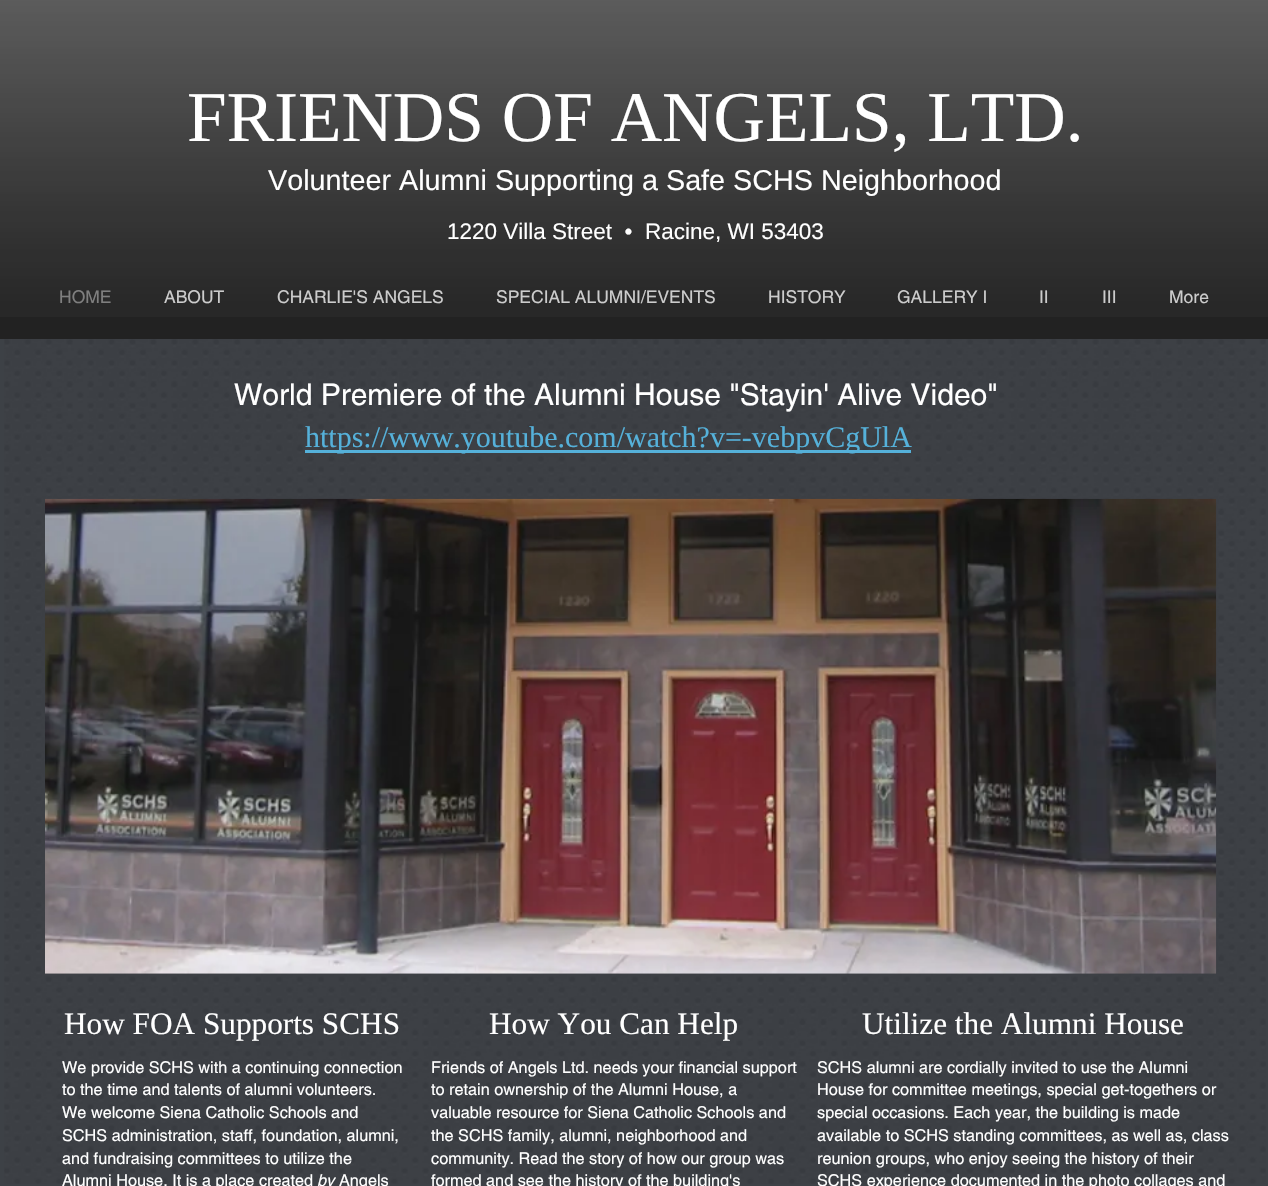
void draw(SkCanvas* canvas) {
    SkPaint paint;
    paint.setAntiAlias(true);
    canvas->clear(0xFF3D4146);
    paint.setColor(0xFF222222);
    canvas->drawRect(SkRect::MakeXYWH(0, 0, 1268, 339), paint);
    canvas->drawImageRect(SkImages::DeferredFromEncodedData(SkData::MakeFromFileName("img1.png")), SkRect::MakeXYWH(0, 0, 1268, 317), SkSamplingOptions());
    SkFont font1(fontMgr->matchFamilyStyle("Liberation Serif", SkFontStyle::Normal()), 71.25f);
    font1.setSubpixel(true);
    paint.setColor(0xFFFFFFFF);
    canvas->drawString("FRIENDS OF ANGELS, LTD.", 187, 141, font1, paint);
    SkFont font2(fontMgr->matchFamilyStyle("Liberation Sans", SkFontStyle::Normal()), 28.75f);
    font2.setSubpixel(true);
    canvas->drawString("Volunteer Alumni Supporting a Safe SCHS Neighborhood", 268, 190, font2, paint);
    SkFont font3(fontMgr->matchFamilyStyle("Liberation Sans", SkFontStyle::Normal()), 22.5f);
    font3.setSubpixel(true);
    canvas->drawString("1220 Villa Street  •  Racine, WI 53403", 447, 239, font3, paint);
    SkFont font4(fontMgr->matchFamilyStyle("helvetica", SkFontStyle::Normal()), 17.5f);
    font4.setSubpixel(true);
    paint.setColor(0xFF7F7F7F);
    canvas->drawString("HOME", 59, 303, font4, paint);
    paint.setColor(0xFFCCCCCC);
    canvas->drawString("ABOUT", 164, 303, font4, paint);
    canvas->drawString("CHARLIE'S ANGELS", 277, 303, font4, paint);
    canvas->drawString("SPECIAL ALUMNI/EVENTS", 496, 303, font4, paint);
    canvas->drawString("HISTORY", 768, 303, font4, paint);
    canvas->drawString("GALLERY I", 897, 303, font4, paint);
    canvas->drawString("II", 1039, 303, font4, paint);
    canvas->drawString("III", 1102, 303, font4, paint);
    canvas->drawString("More", 1169, 303, font4, paint);
    canvas->drawImageRect(SkImages::DeferredFromEncodedData(SkData::MakeFromFileName("img3.png")), SkRect::MakeXYWH(4, 339, 1262, 845), SkSamplingOptions());
    SkFont font5(fontMgr->matchFamilyStyle("helvetica", SkFontStyle::Normal()), 30);
    font5.setSubpixel(true);
    paint.setColor(0xFFFFFFFF);
    canvas->drawString("World Premiere of the Alumni House \"Stayin' Alive Video\"", 234, 405, font5, paint);
    paint.setColor(0xFF55B1DA);
    canvas->drawRect(SkRect::MakeXYWH(305, 450, 606, 3), paint);
    SkFont font6(fontMgr->matchFamilyStyle("Liberation Serif", SkFontStyle::Normal()), 30);
    font6.setSubpixel(true);
    canvas->drawString("https://www.youtube.com/watch?v=-vebpvCgUlA", 305, 447, font6, paint);
    canvas->drawImageRect(SkImages::DeferredFromEncodedData(SkData::MakeFromFileName("img2.png")), SkRect::MakeXYWH(45, 498, 1172, 476), SkSamplingOptions());
    SkFont font7(fontMgr->matchFamilyStyle("Liberation Serif", SkFontStyle::Normal()), 31.25f);
    font7.setSubpixel(true);
    paint.setColor(0xFFFFFFFF);
    canvas->drawString("How FOA Supports SCHS", 64, 1034, font7, paint);
    SkFont font8(fontMgr->matchFamilyStyle("helvetica", SkFontStyle::Normal()), 16.25f);
    font8.setSubpixel(true);
    canvas->drawString("We provide SCHS with a continuing connection", 62, 1073, font8, paint);
    canvas->drawString("to the time and talents of alumni volunteers.", 62, 1095, font8, paint);
    canvas->drawString("We welcome Siena Catholic Schools and", 62, 1118, font8, paint);
    canvas->drawString("SCHS administration, staff, foundation, alumni,", 62, 1141, font8, paint);
    canvas->drawString("and fundraising committees to utilize the", 62, 1164, font8, paint);
    canvas->drawString("Alumni House. It is a place created", 62, 1186, font8, paint);
    SkFont font9(fontMgr->matchFamilyStyle("helvetica", SkFontStyle::Italic()), 16.25f);
    font9.setSubpixel(true);
    canvas->drawString("by", 317, 1186, font9, paint);
    canvas->drawString("Angels", 339, 1186, font8, paint);
    canvas->drawString("How You Can Help", 489, 1034, font7, paint);
    canvas->drawString("Friends of Angels Ltd. needs your financial support", 431, 1073, font8, paint);
    canvas->drawString("to retain ownership of the Alumni House, a", 431, 1095, font8, paint);
    canvas->drawString("valuable resource for Siena Catholic Schools and", 431, 1118, font8, paint);
    canvas->drawString("the SCHS family, alumni, neighborhood and", 431, 1141, font8, paint);
    canvas->drawString("community. Read the story of how our group was", 431, 1164, font8, paint);
    canvas->drawString("formed and see the history of the building's", 431, 1186, font8, paint);
    canvas->drawString("Utilize the Alumni House", 862, 1034, font7, paint);
    canvas->drawString("SCHS alumni are cordially invited to use the Alumni", 817, 1073, font8, paint);
    canvas->drawString("House for committee meetings, special get-togethers or", 817, 1095, font8, paint);
    canvas->drawString("special occasions. Each year, the building is made", 817, 1118, font8, paint);
    canvas->drawString("available to SCHS standing committees, as well as, class", 817, 1141, font8, paint);
    canvas->drawString("reunion groups, who enjoy seeing the history of their", 817, 1164, font8, paint);
    canvas->drawString("SCHS experience documented in the photo collages and", 817, 1186, font8, paint);
}
